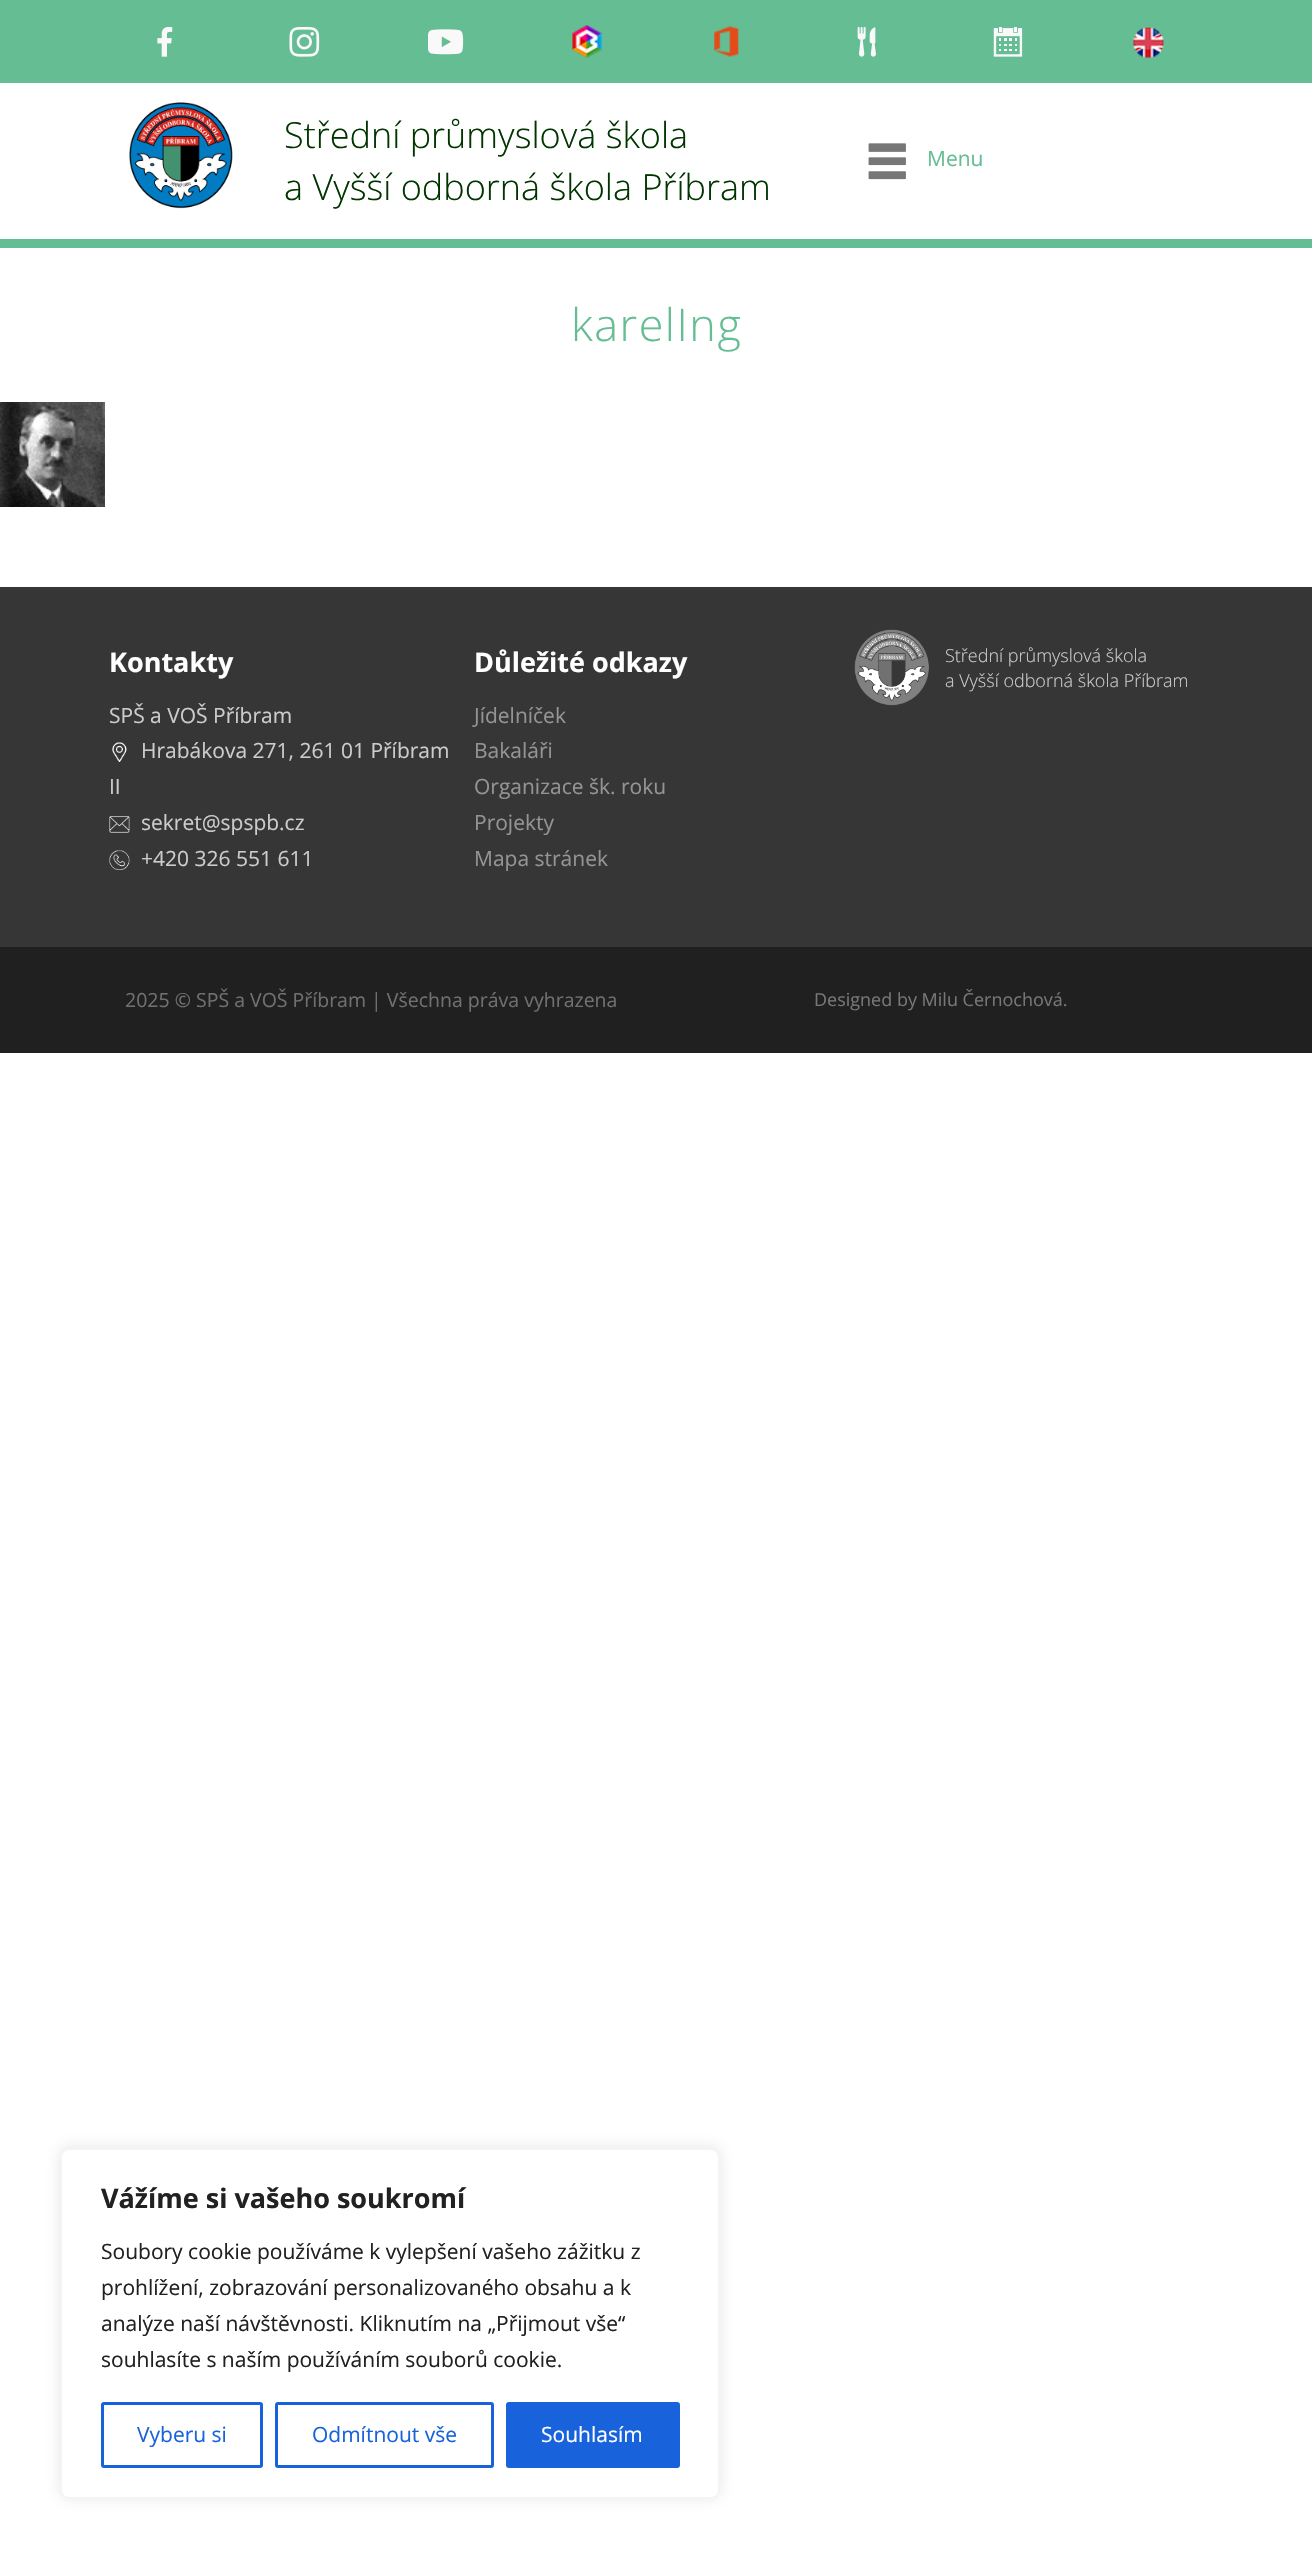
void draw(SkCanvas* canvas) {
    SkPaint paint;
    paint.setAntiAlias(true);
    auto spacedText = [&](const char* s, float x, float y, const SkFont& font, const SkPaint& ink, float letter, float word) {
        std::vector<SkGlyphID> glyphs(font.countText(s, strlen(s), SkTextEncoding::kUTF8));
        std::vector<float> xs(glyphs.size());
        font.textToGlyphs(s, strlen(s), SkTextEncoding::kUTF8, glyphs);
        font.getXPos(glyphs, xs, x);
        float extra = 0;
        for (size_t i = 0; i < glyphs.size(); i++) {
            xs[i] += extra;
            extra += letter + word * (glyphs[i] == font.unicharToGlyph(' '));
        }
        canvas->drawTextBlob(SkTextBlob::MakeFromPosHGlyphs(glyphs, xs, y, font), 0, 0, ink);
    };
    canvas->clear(0xFFFFFFFF);
    paint.setColor(0xFF65BD94);
    canvas->drawRect(SkRect::MakeXYWH(0, 0, 1312, 83), paint);
    canvas->drawImageRect(SkImages::DeferredFromEncodedData(SkData::MakeFromFileName("img1.png")), SkRect::MakeXYWH(157, 27, 16, 30), SkSamplingOptions());
    canvas->drawImageRect(SkImages::DeferredFromEncodedData(SkData::MakeFromFileName("img2.png")), SkRect::MakeXYWH(289, 27, 31, 30), SkSamplingOptions());
    canvas->drawImageRect(SkImages::DeferredFromEncodedData(SkData::MakeFromFileName("img3.png")), SkRect::MakeXYWH(428, 29, 36, 26), SkSamplingOptions());
    canvas->drawImageRect(SkImages::DeferredFromEncodedData(SkData::MakeFromFileName("img4.png")), SkRect::MakeXYWH(572, 25, 31, 33), SkSamplingOptions());
    canvas->drawImageRect(SkImages::DeferredFromEncodedData(SkData::MakeFromFileName("img5.png")), SkRect::MakeXYWH(714, 26, 25, 31), SkSamplingOptions());
    canvas->drawImageRect(SkImages::DeferredFromEncodedData(SkData::MakeFromFileName("img6.png")), SkRect::MakeXYWH(857, 27, 19, 30), SkSamplingOptions());
    canvas->drawImageRect(SkImages::DeferredFromEncodedData(SkData::MakeFromFileName("img7.png")), SkRect::MakeXYWH(993, 27, 30, 30), SkSamplingOptions());
    canvas->drawImageRect(SkImages::DeferredFromEncodedData(SkData::MakeFromFileName("img8.png")), SkRect::MakeXYWH(1133, 27, 31, 31), SkSamplingOptions());
    canvas->drawRect(SkRect::MakeXYWH(0, 239, 1312, 9), paint);
    canvas->drawImageRect(SkImages::DeferredFromEncodedData(SkData::MakeFromFileName("img9.png")), SkRect::MakeXYWH(129, 102, 104, 107), SkSamplingOptions());
    SkFont font1(fontMgr->matchFamilyStyle("Open Sans", SkFontStyle(300, SkFontStyle::kNormal_Width, SkFontStyle::kUpright_Slant)), 36);
    font1.setSubpixel(true);
    paint.setColor(0xFF003500);
    canvas->drawString("Střední průmyslová škola", 284, 148, font1, paint);
    canvas->drawString("a Vyšší odborná škola Příbram", 284, 200, font1, paint);
    canvas->drawImageRect(SkImages::DeferredFromEncodedData(SkData::MakeFromFileName("img10.png")), SkRect::MakeXYWH(868, 143, 38, 37), SkSamplingOptions());
    SkFont font2(fontMgr->matchFamilyStyle("Open Sans", SkFontStyle::Normal()), 21);
    font2.setSubpixel(true);
    paint.setColor(0xFF65BD94);
    canvas->drawString("Menu", 927, 166, font2, paint);
    SkFont font3(fontMgr->matchFamilyStyle("Open Sans", SkFontStyle(300, SkFontStyle::kNormal_Width, SkFontStyle::kUpright_Slant)), 45);
    font3.setSubpixel(true);
    spacedText("karelIng", 571, 341, font3, paint, 1.5f, 0);
    canvas->drawImageRect(SkImages::DeferredFromEncodedData(SkData::MakeFromFileName("img11.png")), SkRect::MakeXYWH(0, 402, 105, 105), SkSamplingOptions());
    paint.setColor(0xFF363636);
    canvas->drawRect(SkRect::MakeXYWH(0, 587, 1312, 360), paint);
    SkFont font4(fontMgr->matchFamilyStyle("Open Sans", SkFontStyle::Bold()), 27);
    font4.setSubpixel(true);
    paint.setColor(0xFFFFFFFF);
    canvas->drawString("Kontakty", 109, 672, font4, paint);
    paint.setColor(0xFFCCCCCC);
    canvas->drawString("SPŠ a VOŠ Příbram", 109, 723, font2, paint);
    canvas->drawImageRect(SkImages::DeferredFromEncodedData(SkData::MakeFromFileName("img12.png")), SkRect::MakeXYWH(112, 742, 15, 20), SkSamplingOptions());
    canvas->drawString("Hrabákova 271, 261 01 Příbram", 141, 758, font2, paint);
    canvas->drawString("II", 109, 794, font2, paint);
    canvas->drawImageRect(SkImages::DeferredFromEncodedData(SkData::MakeFromFileName("img13.png")), SkRect::MakeXYWH(109, 816, 21, 17), SkSamplingOptions());
    canvas->drawString("sekret@spspb.cz", 141, 830, font2, paint);
    canvas->drawImageRect(SkImages::DeferredFromEncodedData(SkData::MakeFromFileName("img14.png")), SkRect::MakeXYWH(109, 850, 21, 20), SkSamplingOptions());
    canvas->drawString("+420 326 551 611", 141, 866, font2, paint);
    paint.setColor(0xFFFFFFFF);
    canvas->drawString("Důležité odkazy", 474, 672, font4, paint);
    paint.setColor(0xFF949494);
    canvas->drawString("Jídelníček", 474, 723, font2, paint);
    canvas->drawString("Bakaláři", 474, 758, font2, paint);
    canvas->drawString("Organizace šk. roku", 474, 794, font2, paint);
    canvas->drawString("Projekty", 474, 830, font2, paint);
    canvas->drawString("Mapa stránek", 474, 866, font2, paint);
    canvas->drawImageRect(SkImages::DeferredFromEncodedData(SkData::MakeFromFileName("img15.png")), SkRect::MakeXYWH(854, 629, 75, 77), SkSamplingOptions());
    SkFont font5(fontMgr->matchFamilyStyle("Open Sans", SkFontStyle(300, SkFontStyle::kNormal_Width, SkFontStyle::kUpright_Slant)), 18);
    font5.setSubpixel(true);
    paint.setColor(0xFFCCCCCC);
    canvas->drawString("Střední průmyslová škola", 945, 662, font5, paint);
    canvas->drawString("a Vyšší odborná škola Příbram", 945, 687, font5, paint);
    paint.setColor(0xFF202020);
    canvas->drawRect(SkRect::MakeXYWH(0, 947, 1312, 106), paint);
    SkFont font6(fontMgr->matchFamilyStyle("Open Sans", SkFontStyle::Normal()), 19.5f);
    font6.setSubpixel(true);
    paint.setColor(0xFF707070);
    canvas->drawString("2025 © SPŠ a VOŠ Příbram | Všechna práva vyhrazena", 125, 1007, font6, paint);
    SkFont font7(fontMgr->matchFamilyStyle("Open Sans", SkFontStyle::Normal()), 18);
    font7.setSubpixel(true);
    paint.setColor(0xFF777777);
    canvas->drawString("Designed by Milu Černochová.", 814, 1006, font7, paint);
    paint.setColor(0x4DACABAB);
    paint.setMaskFilter(SkMaskFilter::MakeBlur(kNormal_SkBlurStyle, 7.5f));
    canvas->drawRoundRect(SkRect::MakeXYWH(60, 2147, 660, 351), 9, 9, paint);
    paint.setMaskFilter(nullptr);
    paint.setColor(0xFFFFFFFF);
    canvas->drawRoundRect(SkRect::MakeXYWH(61, 2149, 658, 349), 8, 8, paint);
    paint.setStyle(SkPaint::kStroke_Style);
    paint.setStrokeWidth(2);
    paint.setColor(0xFFF4F4F4);
    canvas->drawRoundRect(SkRect::MakeXYWH(61, 2149, 658, 349), 8, 8, paint);
    paint.setStyle(SkPaint::kFill_Style);
    paint.setColor(0xFF212121);
    canvas->drawString("Vážíme si vašeho soukromí", 101, 2208, font4, paint);
    canvas->drawString("Soubory cookie používáme k vylepšení vašeho zážitku z", 101, 2259, font2, paint);
    canvas->drawString("prohlížení, zobrazování personalizovaného obsahu a k", 101, 2295, font2, paint);
    canvas->drawString("analýze naší návštěvnosti. Kliknutím na „Přijmout vše“", 101, 2331, font2, paint);
    canvas->drawString("souhlasíte s naším používáním souborů cookie.", 101, 2367, font2, paint);
    paint.setStyle(SkPaint::kStroke_Style);
    paint.setStrokeWidth(3);
    paint.setColor(0xFF1863DC);
    canvas->drawRoundRect(SkRect::MakeXYWH(102.5f, 2403.5f, 159, 63), 1.5f, 1.5f, paint);
    paint.setStyle(SkPaint::kFill_Style);
    canvas->drawString("Vyberu si", 137, 2442, font2, paint);
    paint.setStyle(SkPaint::kStroke_Style);
    canvas->drawRoundRect(SkRect::MakeXYWH(276.5f, 2403.5f, 216, 63), 1.5f, 1.5f, paint);
    paint.setStyle(SkPaint::kFill_Style);
    canvas->drawString("Odmítnout vše", 312, 2442, font2, paint);
    canvas->drawRoundRect(SkRect::MakeXYWH(507.5f, 2403.5f, 171, 63), 1.5f, 1.5f, paint);
    paint.setStyle(SkPaint::kStroke_Style);
    canvas->drawRoundRect(SkRect::MakeXYWH(507.5f, 2403.5f, 171, 63), 1.5f, 1.5f, paint);
    paint.setStyle(SkPaint::kFill_Style);
    paint.setColor(0xFFFFFFFF);
    canvas->drawString("Souhlasím", 541, 2442, font2, paint);
}
